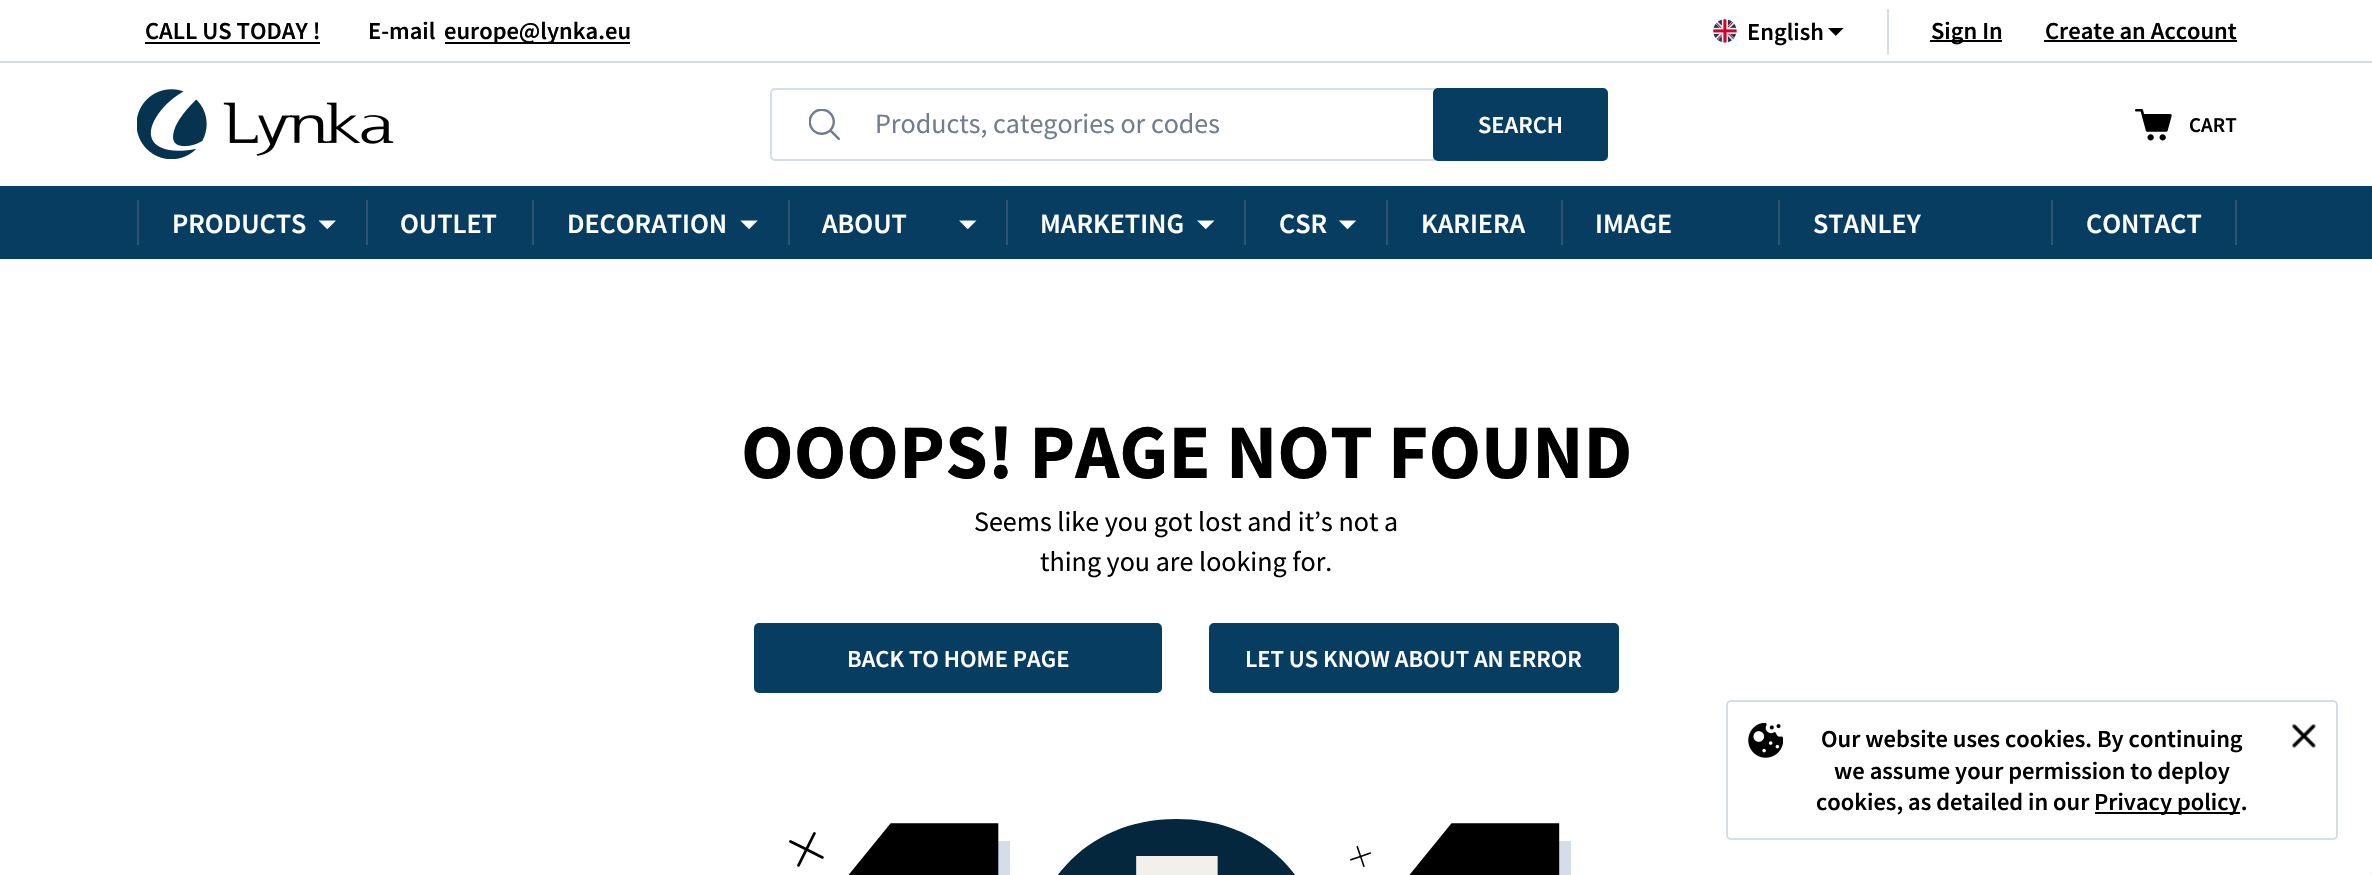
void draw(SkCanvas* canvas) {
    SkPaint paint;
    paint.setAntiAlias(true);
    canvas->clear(0xFFFFFFFF);
    paint.setColor(0xFFD5DDE9);
    canvas->drawRect(SkRect::MakeXYWH(0, 61, 2372, 2), paint);
    SkFont font1(fontMgr->matchFamilyStyle("Source Sans Pro", SkFontStyle(600, SkFontStyle::kNormal_Width, SkFontStyle::kUpright_Slant)), 24.5f);
    font1.setSubpixel(true);
    paint.setColor(0xFF000000);
    canvas->drawString("CALL US TODAY !", 145, 39, font1, paint);
    canvas->drawRect(SkRect::MakeXYWH(145, 42, 175, 2), paint);
    canvas->drawString("E-mail", 368, 39, font1, paint);
    canvas->drawRect(SkRect::MakeXYWH(445, 42, 185, 2), paint);
    canvas->drawString("europe@lynka.eu", 444, 39, font1, paint);
    canvas->drawImageRect(SkImages::DeferredFromEncodedData(SkData::MakeFromFileName("img1.png")), SkRect::MakeXYWH(1713, 19, 24, 24), SkSamplingOptions());
    canvas->drawString("English", 1747, 40, font1, paint);
    canvas->drawImageRect(SkImages::DeferredFromEncodedData(SkData::MakeFromFileName("img2.png")), SkRect::MakeXYWH(1828, 28, 16, 8), SkSamplingOptions());
    paint.setColor(0xFFD5DDE9);
    canvas->drawRect(SkRect::MakeXYWH(1887, 9, 2, 45), paint);
    paint.setColor(0xFF000000);
    canvas->drawRect(SkRect::MakeXYWH(1930, 40, 72, 2), paint);
    canvas->drawString("Sign In", 1931, 39, font1, paint);
    canvas->drawString("Create an Account", 2045, 39, font1, paint);
    canvas->drawRect(SkRect::MakeXYWH(2044, 40, 193, 2), paint);
    canvas->drawImageRect(SkImages::DeferredFromEncodedData(SkData::MakeFromFileName("img3.png")), SkRect::MakeXYWH(137, 89, 257, 70), SkSamplingOptions());
    canvas->drawImageRect(SkImages::DeferredFromEncodedData(SkData::MakeFromFileName("img4.png")), SkRect::MakeXYWH(809, 109, 31, 31), SkSamplingOptions());
    paint.setStyle(SkPaint::kStroke_Style);
    paint.setStrokeWidth(2);
    paint.setColor(0xFFD5DDE9);
    canvas->drawRoundRect(SkRect::MakeXYWH(771, 89, 667, 71), 4, 4, paint);
    SkFont font2(fontMgr->matchFamilyStyle("Source Sans Pro", SkFontStyle::Normal()), 28);
    font2.setSubpixel(true);
    paint.setStyle(SkPaint::kFill_Style);
    paint.setColor(0xFF717D8F);
    canvas->drawString("Products, categories or codes", 875, 133, font2, paint);
    paint.setColor(0xFF063D60);
    canvas->drawRoundRect(SkRect::MakeXYWH(1434, 89, 173, 71), 4, 4, paint);
    paint.setStyle(SkPaint::kStroke_Style);
    canvas->drawRoundRect(SkRect::MakeXYWH(1434, 89, 173, 71), 4, 4, paint);
    paint.setStyle(SkPaint::kFill_Style);
    paint.setColor(0xFFFFFFFF);
    canvas->drawString("SEARCH", 1478, 133, font1, paint);
    canvas->drawImageRect(SkImages::DeferredFromEncodedData(SkData::MakeFromFileName("img5.png")), SkRect::MakeXYWH(2135, 109, 37, 32), SkSamplingOptions());
    SkFont font3(fontMgr->matchFamilyStyle("Source Sans Pro", SkFontStyle(600, SkFontStyle::kNormal_Width, SkFontStyle::kUpright_Slant)), 21);
    font3.setSubpixel(true);
    paint.setColor(0xFF000000);
    canvas->drawString("CART", 2189, 132, font3, paint);
    paint.setColor(0xFF063D60);
    canvas->drawRect(SkRect::MakeXYWH(0, 186, 2372, 73), paint);
    paint.setColor(0xFF2F546F);
    canvas->drawRect(SkRect::MakeXYWH(137, 200, 2, 45), paint);
    SkFont font4(fontMgr->matchFamilyStyle("Source Sans Pro", SkFontStyle(600, SkFontStyle::kNormal_Width, SkFontStyle::kUpright_Slant)), 28);
    font4.setSubpixel(true);
    paint.setColor(0xFFFFFFFF);
    canvas->drawString("PRODUCTS", 172, 233, font4, paint);
    canvas->drawImageRect(SkImages::DeferredFromEncodedData(SkData::MakeFromFileName("img6.png")), SkRect::MakeXYWH(319, 220, 17, 10), SkSamplingOptions());
    paint.setColor(0xFF2F546F);
    canvas->drawRect(SkRect::MakeXYWH(366, 200, 2, 45), paint);
    paint.setColor(0xFFFFFFFF);
    canvas->drawString("OUTLET", 400, 233, font4, paint);
    paint.setColor(0xFF2F546F);
    canvas->drawRect(SkRect::MakeXYWH(532, 200, 2, 45), paint);
    paint.setColor(0xFFFFFFFF);
    canvas->drawString("DECORATION", 567, 233, font4, paint);
    canvas->drawImageRect(SkImages::DeferredFromEncodedData(SkData::MakeFromFileName("img7.png")), SkRect::MakeXYWH(740, 220, 18, 10), SkSamplingOptions());
    paint.setColor(0xFF2F546F);
    canvas->drawRect(SkRect::MakeXYWH(788, 200, 2, 45), paint);
    paint.setColor(0xFFFFFFFF);
    canvas->drawString("ABOUT", 822, 233, font4, paint);
    canvas->drawImageRect(SkImages::DeferredFromEncodedData(SkData::MakeFromFileName("img8.png")), SkRect::MakeXYWH(959, 220, 18, 10), SkSamplingOptions());
    paint.setColor(0xFF2F546F);
    canvas->drawRect(SkRect::MakeXYWH(1006, 200, 2, 45), paint);
    paint.setColor(0xFFFFFFFF);
    canvas->drawString("MARKETING", 1040, 233, font4, paint);
    canvas->drawImageRect(SkImages::DeferredFromEncodedData(SkData::MakeFromFileName("img8.png")), SkRect::MakeXYWH(1197, 220, 18, 10), SkSamplingOptions());
    paint.setColor(0xFF2F546F);
    canvas->drawRect(SkRect::MakeXYWH(1244, 200, 2, 45), paint);
    paint.setColor(0xFFFFFFFF);
    canvas->drawString("CSR", 1279, 233, font4, paint);
    canvas->drawImageRect(SkImages::DeferredFromEncodedData(SkData::MakeFromFileName("img9.png")), SkRect::MakeXYWH(1339, 220, 17, 10), SkSamplingOptions());
    paint.setColor(0xFF2F546F);
    canvas->drawRect(SkRect::MakeXYWH(1386, 200, 2, 45), paint);
    paint.setColor(0xFFFFFFFF);
    canvas->drawString("KARIERA", 1421, 233, font4, paint);
    paint.setColor(0xFF2F546F);
    canvas->drawRect(SkRect::MakeXYWH(1561, 200, 2, 45), paint);
    paint.setColor(0xFFFFFFFF);
    canvas->drawString("IMAGE", 1595, 233, font4, paint);
    paint.setColor(0xFF2F546F);
    canvas->drawRect(SkRect::MakeXYWH(1778, 200, 2, 45), paint);
    paint.setColor(0xFFFFFFFF);
    canvas->drawString("STANLEY", 1813, 233, font4, paint);
    paint.setColor(0xFF2F546F);
    canvas->drawRect(SkRect::MakeXYWH(2051, 200, 2, 45), paint);
    canvas->drawRect(SkRect::MakeXYWH(2235, 200, 2, 45), paint);
    paint.setColor(0xFFFFFFFF);
    canvas->drawString("CONTACT", 2086, 233, font4, paint);
    SkFont font5(fontMgr->matchFamilyStyle("Source Sans Pro", SkFontStyle::Bold()), 77);
    font5.setSubpixel(true);
    paint.setColor(0xFF000000);
    canvas->drawString("OOOPS! PAGE NOT FOUND", 741, 478, font5, paint);
    canvas->drawString("Seems like you got lost and it’s not a", 974, 531, font2, paint);
    canvas->drawString("thing you are looking for.", 1040, 571, font2, paint);
    paint.setColor(0xFF063D60);
    canvas->drawRoundRect(SkRect::MakeXYWH(755, 624, 406, 68), 4, 4, paint);
    paint.setStyle(SkPaint::kStroke_Style);
    canvas->drawRoundRect(SkRect::MakeXYWH(755, 624, 406, 68), 4, 4, paint);
    paint.setStyle(SkPaint::kFill_Style);
    paint.setColor(0xFFFFFFFF);
    canvas->drawString("BACK TO HOME PAGE", 847, 667, font1, paint);
    paint.setColor(0xFF063D60);
    canvas->drawRoundRect(SkRect::MakeXYWH(1210, 624, 408, 68), 4, 4, paint);
    paint.setStyle(SkPaint::kStroke_Style);
    canvas->drawRoundRect(SkRect::MakeXYWH(1210, 624, 408, 68), 4, 4, paint);
    paint.setStyle(SkPaint::kFill_Style);
    paint.setColor(0xFFFFFFFF);
    canvas->drawString("LET US KNOW ABOUT AN ERROR", 1245, 667, font1, paint);
    canvas->drawImageRect(SkImages::DeferredFromEncodedData(SkData::MakeFromFileName("img10.png")), SkRect::MakeXYWH(789, 819, 782, 56), SkSamplingOptions());
    paint.setStyle(SkPaint::kStroke_Style);
    paint.setColor(0xFFD5DDE9);
    canvas->drawRoundRect(SkRect::MakeXYWH(1727, 701, 610, 138), 4, 4, paint);
    canvas->drawImageRect(SkImages::DeferredFromEncodedData(SkData::MakeFromFileName("img11.png")), SkRect::MakeXYWH(1748, 723, 35, 35), SkSamplingOptions());
    paint.setStyle(SkPaint::kFill_Style);
    paint.setColor(0xFF000000);
    canvas->drawString("Our website uses cookies. By continuing", 1821, 747, font1, paint);
    canvas->drawString("we assume your permission to deploy", 1834, 779, font1, paint);
    canvas->drawString("cookies, as detailed in our", 1816, 810, font1, paint);
    canvas->drawRect(SkRect::MakeXYWH(2095, 812, 145, 2), paint);
    canvas->drawString("Privacy policy.", 2094, 810, font1, paint);
    canvas->drawImageRect(SkImages::DeferredFromEncodedData(SkData::MakeFromFileName("img12.png")), SkRect::MakeXYWH(2292, 724, 24, 24), SkSamplingOptions());
    paint.setColor(0xFFF5F5F5);
    canvas->drawRect(SkRect::MakeXYWH(2370, 872, 2, 3), paint);
}
